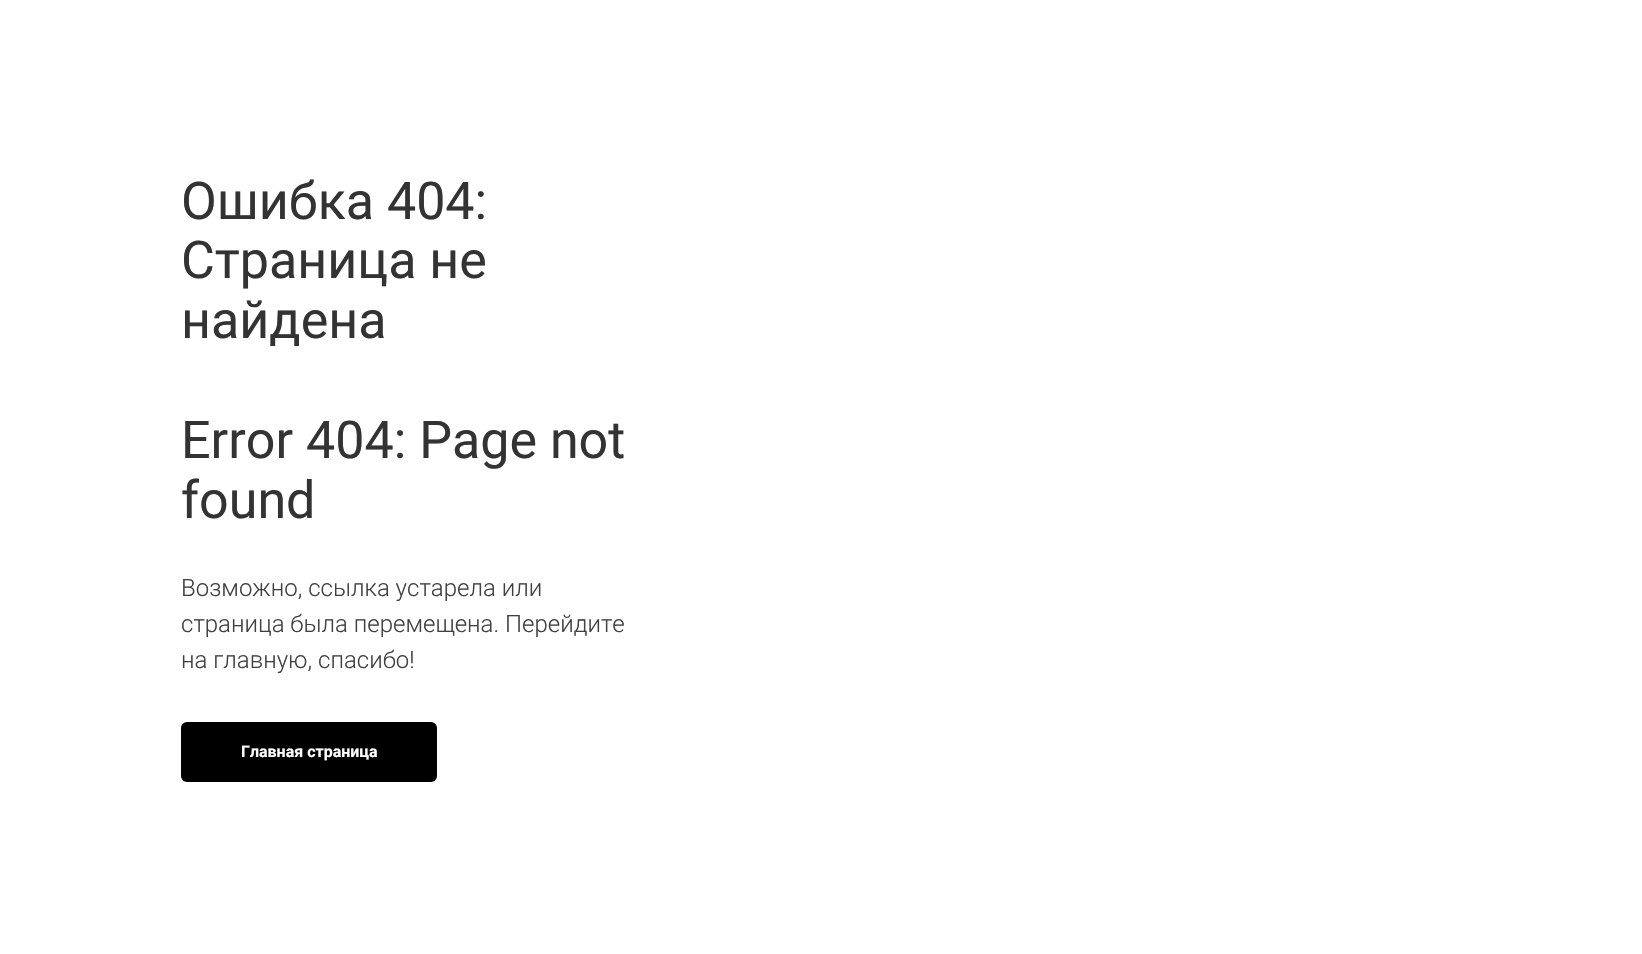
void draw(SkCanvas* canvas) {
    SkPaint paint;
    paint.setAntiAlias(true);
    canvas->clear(0xFFFFFFFF);
    SkFont font1(fontMgr->matchFamilyStyle("Roboto", SkFontStyle::Normal()), 52);
    font1.setSubpixel(true);
    paint.setColor(0xFF333333);
    canvas->drawString("Ошибка 404:", 181, 219, font1, paint);
    canvas->drawString("Страница не", 181, 278, font1, paint);
    canvas->drawString("найдена", 181, 338, font1, paint);
    canvas->drawString("Error 404: Page not", 181, 458, font1, paint);
    canvas->drawString("found", 181, 518, font1, paint);
    SkFont font2(fontMgr->matchFamilyStyle("Roboto", SkFontStyle(300, SkFontStyle::kNormal_Width, SkFontStyle::kUpright_Slant)), 24);
    font2.setSubpixel(true);
    paint.setColor(0xFF404040);
    canvas->drawString("Возможно, ссылка устарела или", 181, 596, font2, paint);
    canvas->drawString("страница была перемещена. Перейдите", 181, 632, font2, paint);
    canvas->drawString("на главную, спасибо!", 181, 668, font2, paint);
    paint.setColor(0xFF000000);
    canvas->drawRoundRect(SkRect::MakeXYWH(181, 722, 256, 60), 6, 6, paint);
    SkFont font3(fontMgr->matchFamilyStyle("Roboto", SkFontStyle::Bold()), 16);
    font3.setSubpixel(true);
    paint.setColor(0xFFFFFFFF);
    canvas->drawString("Главная страница", 241, 757, font3, paint);
}
